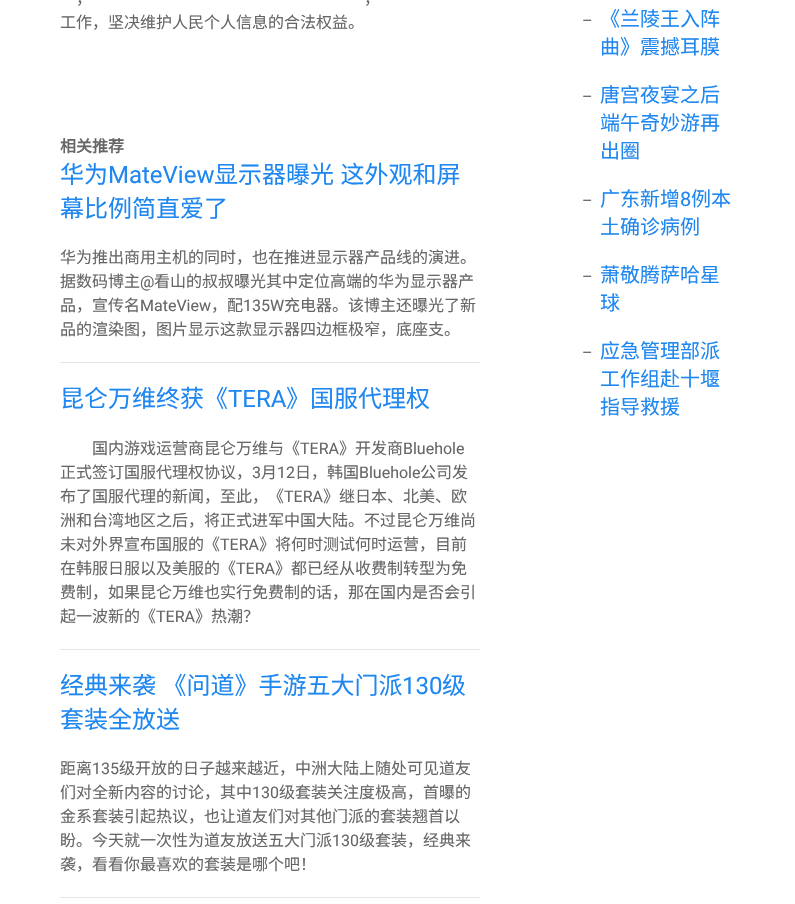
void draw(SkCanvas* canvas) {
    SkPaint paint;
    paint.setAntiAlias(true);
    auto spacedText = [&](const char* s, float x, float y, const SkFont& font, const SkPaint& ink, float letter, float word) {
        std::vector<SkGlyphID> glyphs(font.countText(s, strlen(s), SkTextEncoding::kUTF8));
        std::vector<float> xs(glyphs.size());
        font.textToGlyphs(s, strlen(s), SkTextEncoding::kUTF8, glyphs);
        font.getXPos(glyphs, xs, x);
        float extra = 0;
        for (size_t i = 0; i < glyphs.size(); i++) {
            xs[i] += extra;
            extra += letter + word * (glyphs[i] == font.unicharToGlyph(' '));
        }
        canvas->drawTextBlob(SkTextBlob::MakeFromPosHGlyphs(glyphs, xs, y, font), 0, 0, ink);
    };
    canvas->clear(0xFFFFFFFF);
    SkFont font1(fontMgr->matchFamilyStyle("Noto Sans CJK SC", SkFontStyle::Normal()), 16);
    font1.setSubpixel(true);
    paint.setColor(0xFF666666);
    canvas->drawString("，", 76, 4, font1, paint);
    canvas->drawString("，", 364, 4, font1, paint);
    canvas->drawString("工作，坚决维护人民个人信息的合法权益。", 60, 28, font1, paint);
    SkFont font2(fontMgr->matchFamilyStyle("Noto Sans CJK SC", SkFontStyle::Bold()), 16);
    font2.setSubpixel(true);
    canvas->drawString("相关推荐", 60, 152, font2, paint);
    SkFont font3(fontMgr->matchFamilyStyle("Noto Sans CJK SC", SkFontStyle::Normal()), 24);
    font3.setSubpixel(true);
    paint.setColor(0xFF1E87F0);
    canvas->drawString("华为", 60, 183, font3, paint);
    SkFont font4(fontMgr->matchFamilyStyle("Roboto", SkFontStyle::Normal()), 24);
    font4.setSubpixel(true);
    canvas->drawString("MateView", 108, 183, font4, paint);
    spacedText("显示器曝光 这外观和屏", 214, 183, font3, paint, 0, 1);
    canvas->drawString("幕比例简直爱了", 60, 217, font3, paint);
    paint.setColor(0xFF666666);
    canvas->drawString("华为推出商用主机的同时，也在推进显示器产品线的演进。", 60, 263, font1, paint);
    canvas->drawString("据数码博主", 60, 287, font1, paint);
    SkFont font5(fontMgr->matchFamilyStyle("Roboto", SkFontStyle::Normal()), 16);
    font5.setSubpixel(true);
    canvas->drawString("@", 140, 287, font5, paint);
    canvas->drawString("看山的叔叔曝光其中定位高端的华为显示器产", 154, 287, font1, paint);
    canvas->drawString("品，宣传名", 60, 311, font1, paint);
    canvas->drawString("MateView", 140, 311, font5, paint);
    canvas->drawString("，配", 211, 311, font1, paint);
    canvas->drawString("135W", 243, 311, font5, paint);
    canvas->drawString("充电器。该博主还曝光了新", 284, 311, font1, paint);
    canvas->drawString("品的渲染图，图片显示这款显示器四边框极窄，底座支。", 60, 335, font1, paint);
    paint.setColor(0xFFE5E5E5);
    canvas->drawRect(SkRect::MakeXYWH(60, 362, 420, 1), paint);
    paint.setColor(0xFF1E87F0);
    canvas->drawString("昆仑万维终获《", 60, 407, font3, paint);
    canvas->drawString("TERA", 228, 407, font4, paint);
    canvas->drawString("》国服代理权", 286, 407, font3, paint);
    paint.setColor(0xFF666666);
    canvas->drawString("国内游戏运营商昆仑万维与《", 92, 454, font1, paint);
    canvas->drawString("TERA", 300, 454, font5, paint);
    canvas->drawString("》开发商", 339, 454, font1, paint);
    canvas->drawString("Bluehole", 403, 454, font5, paint);
    canvas->drawString("正式签订国服代理权协议，", 60, 478, font1, paint);
    canvas->drawString("3", 252, 478, font5, paint);
    canvas->drawString("月", 261, 478, font1, paint);
    canvas->drawString("12", 277, 478, font5, paint);
    canvas->drawString("日，韩国", 295, 478, font1, paint);
    canvas->drawString("Bluehole", 359, 478, font5, paint);
    canvas->drawString("公司发", 420, 478, font1, paint);
    canvas->drawString("布了国服代理的新闻，至此，《", 60, 502, font1, paint);
    canvas->drawString("TERA", 284, 502, font5, paint);
    canvas->drawString("》继日本、北美、欧", 323, 502, font1, paint);
    canvas->drawString("洲和台湾地区之后，将正式进军中国大陆。不过昆仑万维尚", 60, 526, font1, paint);
    canvas->drawString("未对外界宣布国服的《", 60, 550, font1, paint);
    canvas->drawString("TERA", 220, 550, font5, paint);
    canvas->drawString("》将何时测试何时运营，目前", 259, 550, font1, paint);
    canvas->drawString("在韩服日服以及美服的《", 60, 574, font1, paint);
    canvas->drawString("TERA", 236, 574, font5, paint);
    canvas->drawString("》都已经从收费制转型为免", 275, 574, font1, paint);
    canvas->drawString("费制，如果昆仑万维也实行免费制的话，那在国内是否会引", 60, 598, font1, paint);
    canvas->drawString("起一波新的《", 60, 622, font1, paint);
    canvas->drawString("TERA", 156, 622, font5, paint);
    canvas->drawString("》热潮？", 195, 622, font1, paint);
    paint.setColor(0xFFE5E5E5);
    canvas->drawRect(SkRect::MakeXYWH(60, 649, 420, 1), paint);
    paint.setColor(0xFF1E87F0);
    spacedText("经典来袭 《问道》手游五大门派", 60, 694, font3, paint, 0, 1);
    canvas->drawString("130", 402, 694, font4, paint);
    canvas->drawString("级", 442, 694, font3, paint);
    canvas->drawString("套装全放送", 60, 728, font3, paint);
    paint.setColor(0xFF666666);
    canvas->drawString("距离", 60, 774, font1, paint);
    canvas->drawString("135", 92, 774, font5, paint);
    canvas->drawString("级开放的日子越来越近，中洲大陆上随处可见道友", 119, 774, font1, paint);
    canvas->drawString("们对全新内容的讨论，其中", 60, 798, font1, paint);
    canvas->drawString("130", 252, 798, font5, paint);
    canvas->drawString("级套装关注度极高，首曝的", 279, 798, font1, paint);
    canvas->drawString("金系套装引起热议，也让道友们对其他门派的套装翘首以", 60, 822, font1, paint);
    canvas->drawString("盼。今天就一次性为道友放送五大门派", 60, 846, font1, paint);
    canvas->drawString("130", 332, 846, font5, paint);
    canvas->drawString("级套装，经典来", 359, 846, font1, paint);
    canvas->drawString("袭，看看你最喜欢的套装是哪个吧！", 60, 870, font1, paint);
    paint.setColor(0xFFE5E5E5);
    canvas->drawRect(SkRect::MakeXYWH(60, 897, 420, 1), paint);
    paint.setColor(0xFF666666);
    canvas->drawString("–", 582, 26, font5, paint);
    SkFont font6(fontMgr->matchFamilyStyle("Noto Sans CJK SC", SkFontStyle::Normal()), 20);
    font6.setSubpixel(true);
    paint.setColor(0xFF1E87F0);
    canvas->drawString("《兰陵王入阵", 600, 26, font6, paint);
    canvas->drawString("曲》震撼耳膜", 600, 54, font6, paint);
    paint.setColor(0xFF666666);
    canvas->drawString("–", 582, 102, font5, paint);
    paint.setColor(0xFF1E87F0);
    canvas->drawString("唐宫夜宴之后", 600, 102, font6, paint);
    canvas->drawString("端午奇妙游再", 600, 130, font6, paint);
    canvas->drawString("出圈", 600, 158, font6, paint);
    paint.setColor(0xFF666666);
    canvas->drawString("–", 582, 206, font5, paint);
    paint.setColor(0xFF1E87F0);
    canvas->drawString("广东新增", 600, 206, font6, paint);
    SkFont font7(fontMgr->matchFamilyStyle("Roboto", SkFontStyle::Normal()), 20);
    font7.setSubpixel(true);
    canvas->drawString("8", 680, 206, font7, paint);
    canvas->drawString("例本", 691, 206, font6, paint);
    canvas->drawString("土确诊病例", 600, 234, font6, paint);
    paint.setColor(0xFF666666);
    canvas->drawString("–", 582, 282, font5, paint);
    paint.setColor(0xFF1E87F0);
    canvas->drawString("萧敬腾萨哈星", 600, 282, font6, paint);
    canvas->drawString("球", 600, 310, font6, paint);
    paint.setColor(0xFF666666);
    canvas->drawString("–", 582, 358, font5, paint);
    paint.setColor(0xFF1E87F0);
    canvas->drawString("应急管理部派", 600, 358, font6, paint);
    canvas->drawString("工作组赴十堰", 600, 386, font6, paint);
    canvas->drawString("指导救援", 600, 414, font6, paint);
}
